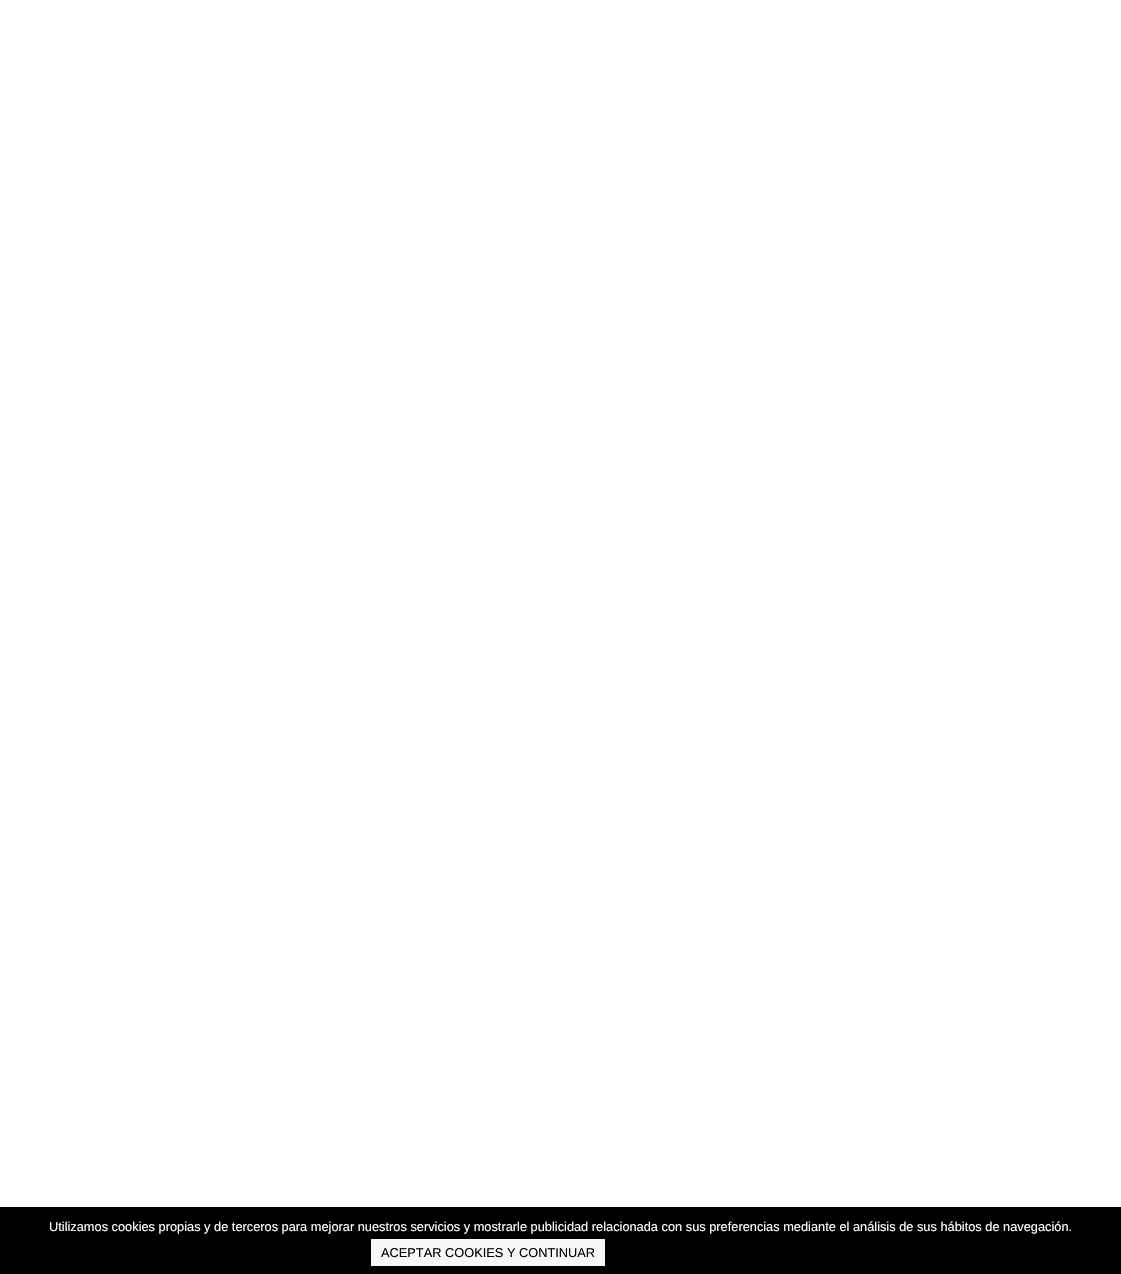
void draw(SkCanvas* canvas) {
    SkPaint paint;
    paint.setAntiAlias(true);
    canvas->clear(0xFFFFFFFF);
    paint.setColor(0xFF000000);
    canvas->drawRect(SkRect::MakeXYWH(0, 1207, 1121, 67), paint);
    SkFont font1(fontMgr->matchFamilyStyle("Liberation Sans", SkFontStyle::Normal()), 12.8f);
    font1.setSubpixel(true);
    paint.setColor(0xFFFFFFFF);
    canvas->drawString("Utilizamos cookies propias y de terceros para mejorar nuestros servicios y mostrarle publicidad relacionada con sus preferencias mediante el análisis de sus hábitos de navegación.", 49, 1231, font1, paint);
    paint.setColor(0xFFF8F7F7);
    canvas->drawRect(SkRect::MakeXYWH(371, 1239, 234, 27), paint);
    paint.setColor(0xFF000000);
    canvas->drawString("ACEPTAR COOKIES Y CONTINUAR", 381, 1257, font1, paint);
}
